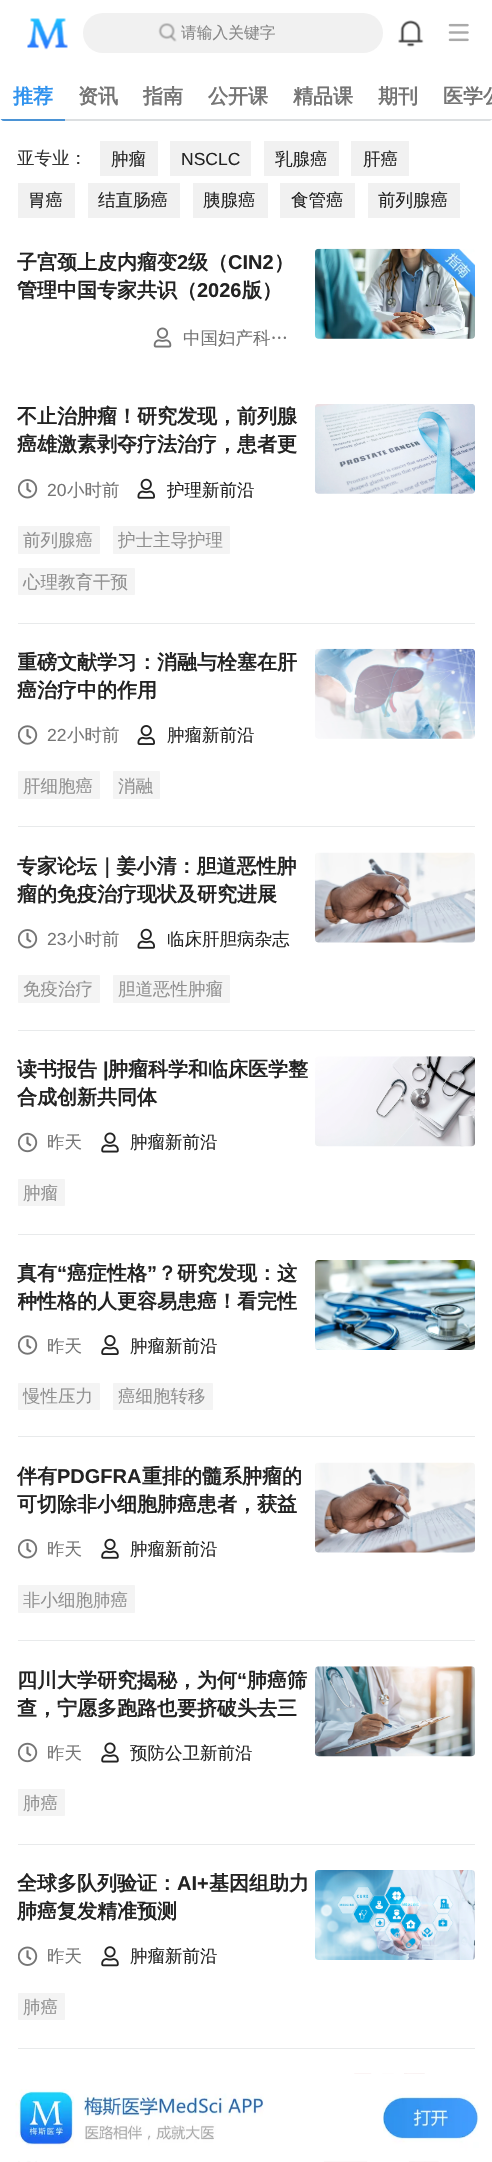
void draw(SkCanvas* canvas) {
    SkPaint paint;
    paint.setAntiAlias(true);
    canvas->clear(0xFFFFFFFF);
    canvas->drawImageRect(SkImages::DeferredFromEncodedData(SkData::MakeFromFileName("img1.png")), SkRect::MakeXYWH(27, 18, 41, 32), SkSamplingOptions());
    paint.setColor(0xFFF1F1F1);
    canvas->drawRoundRect(SkRect::MakeXYWH(83, 13, 300, 40), 20, 20, paint);
    canvas->drawImageRect(SkImages::DeferredFromEncodedData(SkData::MakeFromFileName("img2.png")), SkRect::MakeXYWH(158, 23, 19, 19), SkSamplingOptions());
    SkFont font1(fontMgr->matchFamilyStyle("WenQuanYi Zen Hei", SkFontStyle(500, SkFontStyle::kNormal_Width, SkFontStyle::kUpright_Slant)), 15.75f);
    font1.setSubpixel(true);
    paint.setColor(0xFF888888);
    canvas->drawString("请输入关键字", 181, 38, font1, paint);
    canvas->drawImageRect(SkImages::DeferredFromEncodedData(SkData::MakeFromFileName("img3.png")), SkRect::MakeXYWH(398, 20, 26, 27), SkSamplingOptions());
    canvas->drawImageRect(SkImages::DeferredFromEncodedData(SkData::MakeFromFileName("img4.png")), SkRect::MakeXYWH(448, 23, 21, 19), SkSamplingOptions());
    canvas->save();
    canvas->clipPath(SkPathBuilder().moveTo(4, 63).lineTo(489, 63).cubicTo(491, 63, 493, 65, 493, 67).lineTo(493, 117).cubicTo(493, 119, 491, 121, 489, 121).lineTo(4, 121).cubicTo(2, 121, 0, 119, 0, 117).lineTo(0, 67).cubicTo(0, 65, 2, 63, 4, 63).close().detach(), true);
    paint.setColor(0xFF2F92EE);
    canvas->drawRect(SkRect::MakeXYWH(0, 119, 65, 2), paint);
    canvas->restore();
    SkFont font2(fontMgr->matchFamilyStyle("WenQuanYi Zen Hei", SkFontStyle::Bold()), 20);
    font2.setSubpixel(true);
    canvas->drawString("推荐", 13, 103, font2, paint);
    paint.setColor(0xFF757575);
    canvas->drawString("资讯", 78, 103, font2, paint);
    canvas->drawString("指南", 143, 103, font2, paint);
    canvas->drawString("公开课", 208, 103, font2, paint);
    canvas->drawString("精品课", 293, 103, font2, paint);
    canvas->drawString("期刊", 378, 103, font2, paint);
    canvas->drawString("医学公", 443, 103, font2, paint);
    canvas->save();
    canvas->clipPath(SkPathBuilder().moveTo(4, 63).lineTo(489, 63).cubicTo(491, 63, 493, 65, 493, 67).lineTo(493, 117).cubicTo(493, 119, 491, 121, 489, 121).lineTo(4, 121).cubicTo(2, 121, 0, 119, 0, 117).lineTo(0, 67).cubicTo(0, 65, 2, 63, 4, 63).close().detach(), true);
    paint.setColor(0x4D8B949D);
    canvas->drawRect(SkRect::MakeXYWH(0, 119, 492, 2), paint);
    canvas->restore();
    SkFont font3(fontMgr->matchFamilyStyle("WenQuanYi Zen Hei", SkFontStyle(500, SkFontStyle::kNormal_Width, SkFontStyle::kUpright_Slant)), 17.5f);
    font3.setSubpixel(true);
    paint.setColor(0xFF333333);
    canvas->drawString("亚专业：", 17, 164, font3, paint);
    paint.setColor(0xFFF1F1F1);
    canvas->drawRect(SkRect::MakeXYWH(100, 141, 58, 35), paint);
    paint.setColor(0xFF232323);
    canvas->drawString("肿瘤", 111, 165, font3, paint);
    paint.setColor(0xFFF1F1F1);
    canvas->drawRect(SkRect::MakeXYWH(170, 141, 81, 35), paint);
    SkFont font4(fontMgr->matchFamilyStyle("Liberation Sans", SkFontStyle::Normal()), 17.5f);
    font4.setSubpixel(true);
    paint.setColor(0xFF232323);
    canvas->drawString("NSCLC", 181, 165, font4, paint);
    paint.setColor(0xFFF1F1F1);
    canvas->drawRect(SkRect::MakeXYWH(264, 141, 75, 35), paint);
    paint.setColor(0xFF232323);
    canvas->drawString("乳腺癌", 275, 165, font3, paint);
    paint.setColor(0xFFF1F1F1);
    canvas->drawRect(SkRect::MakeXYWH(351, 141, 58, 35), paint);
    paint.setColor(0xFF232323);
    canvas->drawString("肝癌", 363, 165, font3, paint);
    paint.setColor(0xFFF1F1F1);
    canvas->drawRect(SkRect::MakeXYWH(18, 183, 57, 35), paint);
    paint.setColor(0xFF232323);
    canvas->drawString("胃癌", 28, 206, font3, paint);
    paint.setColor(0xFFF1F1F1);
    canvas->drawRect(SkRect::MakeXYWH(88, 183, 92, 35), paint);
    paint.setColor(0xFF232323);
    canvas->drawString("结直肠癌", 98, 206, font3, paint);
    paint.setColor(0xFFF1F1F1);
    canvas->drawRect(SkRect::MakeXYWH(193, 183, 75, 35), paint);
    paint.setColor(0xFF232323);
    canvas->drawString("胰腺癌", 203, 206, font3, paint);
    paint.setColor(0xFFF1F1F1);
    canvas->drawRect(SkRect::MakeXYWH(280, 183, 75, 35), paint);
    paint.setColor(0xFF232323);
    canvas->drawString("食管癌", 291, 206, font3, paint);
    paint.setColor(0xFFF1F1F1);
    canvas->drawRect(SkRect::MakeXYWH(368, 183, 92, 35), paint);
    paint.setColor(0xFF232323);
    canvas->drawString("前列腺癌", 378, 206, font3, paint);
    canvas->drawString("子宫颈上皮内瘤变", 17, 269, font2, paint);
    SkFont font5(fontMgr->matchFamilyStyle("Liberation Sans", SkFontStyle::Bold()), 20);
    font5.setSubpixel(true);
    canvas->drawString("2", 177, 269, font5, paint);
    canvas->drawString("级（", 188, 269, font2, paint);
    canvas->drawString("CIN2", 228, 269, font5, paint);
    canvas->drawString("）", 274, 269, font2, paint);
    canvas->drawString("管理中国专家共识（", 17, 297, font2, paint);
    canvas->drawString("2026", 197, 297, font5, paint);
    canvas->drawString("版）", 242, 297, font2, paint);
    canvas->drawImageRect(SkImages::DeferredFromEncodedData(SkData::MakeFromFileName("img5.png")), SkRect::MakeXYWH(153, 327, 19, 21), SkSamplingOptions());
    paint.setColor(0xFF757575);
    canvas->drawString("中国妇产科…", 183, 344, font3, paint);
    canvas->drawImageRect(SkImages::DeferredFromEncodedData(SkData::MakeFromFileName("img6.png")), SkRect::MakeXYWH(315, 248, 160, 91), SkSamplingOptions());
    canvas->drawImageRect(SkImages::DeferredFromEncodedData(SkData::MakeFromFileName("img7.png")), SkRect::MakeXYWH(425, 248, 50, 50), SkSamplingOptions());
    paint.setColor(0xFF232323);
    canvas->drawString("不止治肿瘤！研究发现，前列腺", 17, 423, font2, paint);
    canvas->drawString("癌雄激素剥夺疗法治疗，患者更", 17, 451, font2, paint);
    canvas->drawImageRect(SkImages::DeferredFromEncodedData(SkData::MakeFromFileName("img8.png")), SkRect::MakeXYWH(18, 479, 20, 20), SkSamplingOptions());
    paint.setColor(0xFF757575);
    canvas->drawString("20", 47, 496, font4, paint);
    canvas->drawString("小时前", 67, 496, font3, paint);
    canvas->drawImageRect(SkImages::DeferredFromEncodedData(SkData::MakeFromFileName("img9.png")), SkRect::MakeXYWH(137, 478, 18, 21), SkSamplingOptions());
    paint.setColor(0xFF232323);
    canvas->drawString("护理新前沿", 167, 496, font3, paint);
    paint.setColor(0xFFF4F4F4);
    canvas->drawRoundRect(SkRect::MakeXYWH(18, 526, 82, 28), 1, 1, paint);
    paint.setColor(0xFF909090);
    canvas->drawString("前列腺癌", 23, 546, font3, paint);
    paint.setColor(0xFFF4F4F4);
    canvas->drawRoundRect(SkRect::MakeXYWH(113, 526, 117, 28), 1, 1, paint);
    paint.setColor(0xFF909090);
    canvas->drawString("护士主导护理", 118, 546, font3, paint);
    paint.setColor(0xFFF4F4F4);
    canvas->drawRoundRect(SkRect::MakeXYWH(18, 568, 117, 27), 1, 1, paint);
    paint.setColor(0xFF909090);
    canvas->drawString("心理教育干预", 23, 588, font3, paint);
    canvas->drawImageRect(SkImages::DeferredFromEncodedData(SkData::MakeFromFileName("img10.png")), SkRect::MakeXYWH(315, 404, 160, 90), SkSamplingOptions());
    paint.setColor(0xFFE8EAEB);
    canvas->drawRect(SkRect::MakeXYWH(18, 623, 457, 1), paint);
    canvas->save();
    canvas->clipRect(SkRect::MakeXYWH(18, 649, 295, 56));
    paint.setColor(0xFF232323);
    canvas->drawString("重磅文献学习：消融与栓塞在肝", 17, 669, font2, paint);
    canvas->restore();
    canvas->drawString("癌治疗中的作用", 17, 697, font2, paint);
    canvas->drawImageRect(SkImages::DeferredFromEncodedData(SkData::MakeFromFileName("img11.png")), SkRect::MakeXYWH(18, 725, 20, 20), SkSamplingOptions());
    paint.setColor(0xFF757575);
    canvas->drawString("22", 47, 741, font4, paint);
    canvas->drawString("小时前", 67, 741, font3, paint);
    canvas->drawImageRect(SkImages::DeferredFromEncodedData(SkData::MakeFromFileName("img12.png")), SkRect::MakeXYWH(137, 725, 18, 20), SkSamplingOptions());
    paint.setColor(0xFF232323);
    canvas->drawString("肿瘤新前沿", 167, 741, font3, paint);
    paint.setColor(0xFFF4F4F4);
    canvas->drawRoundRect(SkRect::MakeXYWH(18, 771, 82, 28), 1, 1, paint);
    paint.setColor(0xFF909090);
    canvas->drawString("肝细胞癌", 23, 792, font3, paint);
    paint.setColor(0xFFF4F4F4);
    canvas->drawRoundRect(SkRect::MakeXYWH(113, 771, 47, 28), 1, 1, paint);
    paint.setColor(0xFF909090);
    canvas->drawString("消融", 118, 792, font3, paint);
    canvas->drawImageRect(SkImages::DeferredFromEncodedData(SkData::MakeFromFileName("img13.png")), SkRect::MakeXYWH(315, 648, 160, 91), SkSamplingOptions());
    paint.setColor(0xFFE8EAEB);
    canvas->drawRect(SkRect::MakeXYWH(18, 826, 457, 1), paint);
    paint.setColor(0xFF232323);
    canvas->drawString("专家论坛｜姜小清：胆道恶性肿", 17, 873, font2, paint);
    canvas->drawString("瘤的免疫治疗现状及研究进展", 17, 901, font2, paint);
    canvas->drawImageRect(SkImages::DeferredFromEncodedData(SkData::MakeFromFileName("img8.png")), SkRect::MakeXYWH(18, 929, 20, 20), SkSamplingOptions());
    paint.setColor(0xFF757575);
    canvas->drawString("23", 47, 945, font4, paint);
    canvas->drawString("小时前", 67, 945, font3, paint);
    canvas->drawImageRect(SkImages::DeferredFromEncodedData(SkData::MakeFromFileName("img9.png")), SkRect::MakeXYWH(137, 928, 18, 21), SkSamplingOptions());
    paint.setColor(0xFF232323);
    canvas->drawString("临床肝胆病杂志", 167, 945, font3, paint);
    paint.setColor(0xFFF4F4F4);
    canvas->drawRoundRect(SkRect::MakeXYWH(18, 975, 82, 28), 1, 1, paint);
    paint.setColor(0xFF909090);
    canvas->drawString("免疫治疗", 23, 995, font3, paint);
    paint.setColor(0xFFF4F4F4);
    canvas->drawRoundRect(SkRect::MakeXYWH(113, 975, 117, 28), 1, 1, paint);
    paint.setColor(0xFF909090);
    canvas->drawString("胆道恶性肿瘤", 118, 995, font3, paint);
    canvas->drawImageRect(SkImages::DeferredFromEncodedData(SkData::MakeFromFileName("img14.png")), SkRect::MakeXYWH(315, 852, 160, 91), SkSamplingOptions());
    paint.setColor(0xFFE8EAEB);
    canvas->drawRect(SkRect::MakeXYWH(18, 1030, 457, 1), paint);
    paint.setColor(0xFF232323);
    canvas->drawString("读书报告", 17, 1076, font2, paint);
    canvas->drawString("|", 103, 1076, font5, paint);
    canvas->drawString("肿瘤科学和临床医学整", 108, 1076, font2, paint);
    canvas->drawString("合成创新共同体", 17, 1104, font2, paint);
    canvas->drawImageRect(SkImages::DeferredFromEncodedData(SkData::MakeFromFileName("img15.png")), SkRect::MakeXYWH(18, 1132, 20, 21), SkSamplingOptions());
    paint.setColor(0xFF757575);
    canvas->drawString("昨天", 47, 1148, font3, paint);
    canvas->drawImageRect(SkImages::DeferredFromEncodedData(SkData::MakeFromFileName("img16.png")), SkRect::MakeXYWH(101, 1132, 18, 21), SkSamplingOptions());
    paint.setColor(0xFF232323);
    canvas->drawString("肿瘤新前沿", 130, 1148, font3, paint);
    paint.setColor(0xFFF4F4F4);
    canvas->drawRoundRect(SkRect::MakeXYWH(18, 1179, 47, 27), 1, 1, paint);
    paint.setColor(0xFF909090);
    canvas->drawString("肿瘤", 23, 1199, font3, paint);
    canvas->drawImageRect(SkImages::DeferredFromEncodedData(SkData::MakeFromFileName("img17.png")), SkRect::MakeXYWH(315, 1056, 160, 91), SkSamplingOptions());
    paint.setColor(0xFFE8EAEB);
    canvas->drawRect(SkRect::MakeXYWH(18, 1234, 457, 1), paint);
    paint.setColor(0xFF232323);
    canvas->drawString("真有", 17, 1280, font2, paint);
    canvas->drawString("“", 57, 1280, font5, paint);
    canvas->drawString("癌症性格", 67, 1280, font2, paint);
    canvas->drawString("”", 147, 1280, font5, paint);
    canvas->drawString("？研究发现：这", 157, 1280, font2, paint);
    canvas->save();
    canvas->clipRect(SkRect::MakeXYWH(18, 1260, 295, 55));
    canvas->drawString("种性格的人更容易患癌！看完性", 17, 1308, font2, paint);
    canvas->restore();
    canvas->drawImageRect(SkImages::DeferredFromEncodedData(SkData::MakeFromFileName("img11.png")), SkRect::MakeXYWH(18, 1335, 20, 20), SkSamplingOptions());
    paint.setColor(0xFF757575);
    canvas->drawString("昨天", 47, 1352, font3, paint);
    canvas->drawImageRect(SkImages::DeferredFromEncodedData(SkData::MakeFromFileName("img18.png")), SkRect::MakeXYWH(101, 1335, 18, 20), SkSamplingOptions());
    paint.setColor(0xFF232323);
    canvas->drawString("肿瘤新前沿", 130, 1352, font3, paint);
    paint.setColor(0xFFF4F4F4);
    canvas->drawRoundRect(SkRect::MakeXYWH(18, 1383, 82, 27), 1, 1, paint);
    paint.setColor(0xFF909090);
    canvas->drawString("慢性压力", 23, 1402, font3, paint);
    paint.setColor(0xFFF4F4F4);
    canvas->drawRoundRect(SkRect::MakeXYWH(113, 1383, 100, 27), 1, 1, paint);
    paint.setColor(0xFF909090);
    canvas->drawString("癌细胞转移", 118, 1402, font3, paint);
    canvas->drawImageRect(SkImages::DeferredFromEncodedData(SkData::MakeFromFileName("img19.png")), SkRect::MakeXYWH(315, 1260, 160, 90), SkSamplingOptions());
    paint.setColor(0xFFE8EAEB);
    canvas->drawRect(SkRect::MakeXYWH(18, 1436, 457, 1), paint);
    paint.setColor(0xFF232323);
    canvas->drawString("伴有", 17, 1483, font2, paint);
    canvas->drawString("PDGFRA", 57, 1483, font5, paint);
    canvas->drawString("重排的髓系肿瘤的", 142, 1483, font2, paint);
    canvas->drawString("可切除非小细胞肺癌患者，获益", 17, 1511, font2, paint);
    canvas->drawImageRect(SkImages::DeferredFromEncodedData(SkData::MakeFromFileName("img8.png")), SkRect::MakeXYWH(18, 1539, 20, 20), SkSamplingOptions());
    paint.setColor(0xFF757575);
    canvas->drawString("昨天", 47, 1555, font3, paint);
    canvas->drawImageRect(SkImages::DeferredFromEncodedData(SkData::MakeFromFileName("img20.png")), SkRect::MakeXYWH(101, 1538, 18, 21), SkSamplingOptions());
    paint.setColor(0xFF232323);
    canvas->drawString("肿瘤新前沿", 130, 1555, font3, paint);
    paint.setColor(0xFFF4F4F4);
    canvas->drawRoundRect(SkRect::MakeXYWH(18, 1585, 117, 28), 1, 1, paint);
    paint.setColor(0xFF909090);
    canvas->drawString("非小细胞肺癌", 23, 1606, font3, paint);
    canvas->drawImageRect(SkImages::DeferredFromEncodedData(SkData::MakeFromFileName("img14.png")), SkRect::MakeXYWH(315, 1462, 160, 91), SkSamplingOptions());
    paint.setColor(0xFFE8EAEB);
    canvas->drawRect(SkRect::MakeXYWH(18, 1640, 457, 1), paint);
    paint.setColor(0xFF232323);
    canvas->drawString("四川大学研究揭秘，为何", 17, 1687, font2, paint);
    canvas->drawString("“", 237, 1687, font5, paint);
    canvas->drawString("肺癌筛", 247, 1687, font2, paint);
    canvas->drawString("查，宁愿多跑路也要挤破头去三", 17, 1715, font2, paint);
    canvas->drawImageRect(SkImages::DeferredFromEncodedData(SkData::MakeFromFileName("img15.png")), SkRect::MakeXYWH(18, 1742, 20, 21), SkSamplingOptions());
    paint.setColor(0xFF757575);
    canvas->drawString("昨天", 47, 1759, font3, paint);
    canvas->drawImageRect(SkImages::DeferredFromEncodedData(SkData::MakeFromFileName("img16.png")), SkRect::MakeXYWH(101, 1742, 18, 21), SkSamplingOptions());
    paint.setColor(0xFF232323);
    canvas->drawString("预防公卫新前沿", 130, 1759, font3, paint);
    paint.setColor(0xFFF4F4F4);
    canvas->drawRoundRect(SkRect::MakeXYWH(18, 1789, 47, 27), 1, 1, paint);
    paint.setColor(0xFF909090);
    canvas->drawString("肺癌", 23, 1809, font3, paint);
    canvas->drawImageRect(SkImages::DeferredFromEncodedData(SkData::MakeFromFileName("img21.png")), SkRect::MakeXYWH(315, 1666, 160, 91), SkSamplingOptions());
    paint.setColor(0xFFE8EAEB);
    canvas->drawRect(SkRect::MakeXYWH(18, 1844, 457, 1), paint);
    paint.setColor(0xFF232323);
    canvas->drawString("全球多队列验证：", 17, 1890, font2, paint);
    canvas->drawString("AI+", 177, 1890, font5, paint);
    canvas->drawString("基因组助力", 209, 1890, font2, paint);
    canvas->drawString("肺癌复发精准预测", 17, 1918, font2, paint);
    canvas->drawImageRect(SkImages::DeferredFromEncodedData(SkData::MakeFromFileName("img22.png")), SkRect::MakeXYWH(18, 1946, 20, 20), SkSamplingOptions());
    paint.setColor(0xFF757575);
    canvas->drawString("昨天", 47, 1962, font3, paint);
    canvas->drawImageRect(SkImages::DeferredFromEncodedData(SkData::MakeFromFileName("img23.png")), SkRect::MakeXYWH(101, 1946, 18, 21), SkSamplingOptions());
    paint.setColor(0xFF232323);
    canvas->drawString("肿瘤新前沿", 130, 1962, font3, paint);
    paint.setColor(0xFFF4F4F4);
    canvas->drawRoundRect(SkRect::MakeXYWH(18, 1993, 47, 27), 1, 1, paint);
    paint.setColor(0xFF909090);
    canvas->drawString("肺癌", 23, 2013, font3, paint);
    canvas->drawImageRect(SkImages::DeferredFromEncodedData(SkData::MakeFromFileName("img24.png")), SkRect::MakeXYWH(315, 1870, 160, 90), SkSamplingOptions());
    paint.setColor(0xFFE8EAEB);
    canvas->drawRect(SkRect::MakeXYWH(18, 2048, 457, 1), paint);
    canvas->drawImageRect(SkImages::DeferredFromEncodedData(SkData::MakeFromFileName("img25.png")), SkRect::MakeXYWH(18, 2160, 20, 2), SkSamplingOptions());
    canvas->drawImageRect(SkImages::DeferredFromEncodedData(SkData::MakeFromFileName("img26.png")), SkRect::MakeXYWH(106, 2160, 8, 2), SkSamplingOptions());
    canvas->drawImageRect(SkImages::DeferredFromEncodedData(SkData::MakeFromFileName("img27.png")), SkRect::MakeXYWH(323, 2073, 140, 89), SkSamplingOptions());
    canvas->drawImageRect(SkImages::DeferredFromEncodedData(SkData::MakeFromFileName("img28.png")), SkRect::MakeXYWH(15, 2074, 464, 88), SkSamplingOptions());
}
